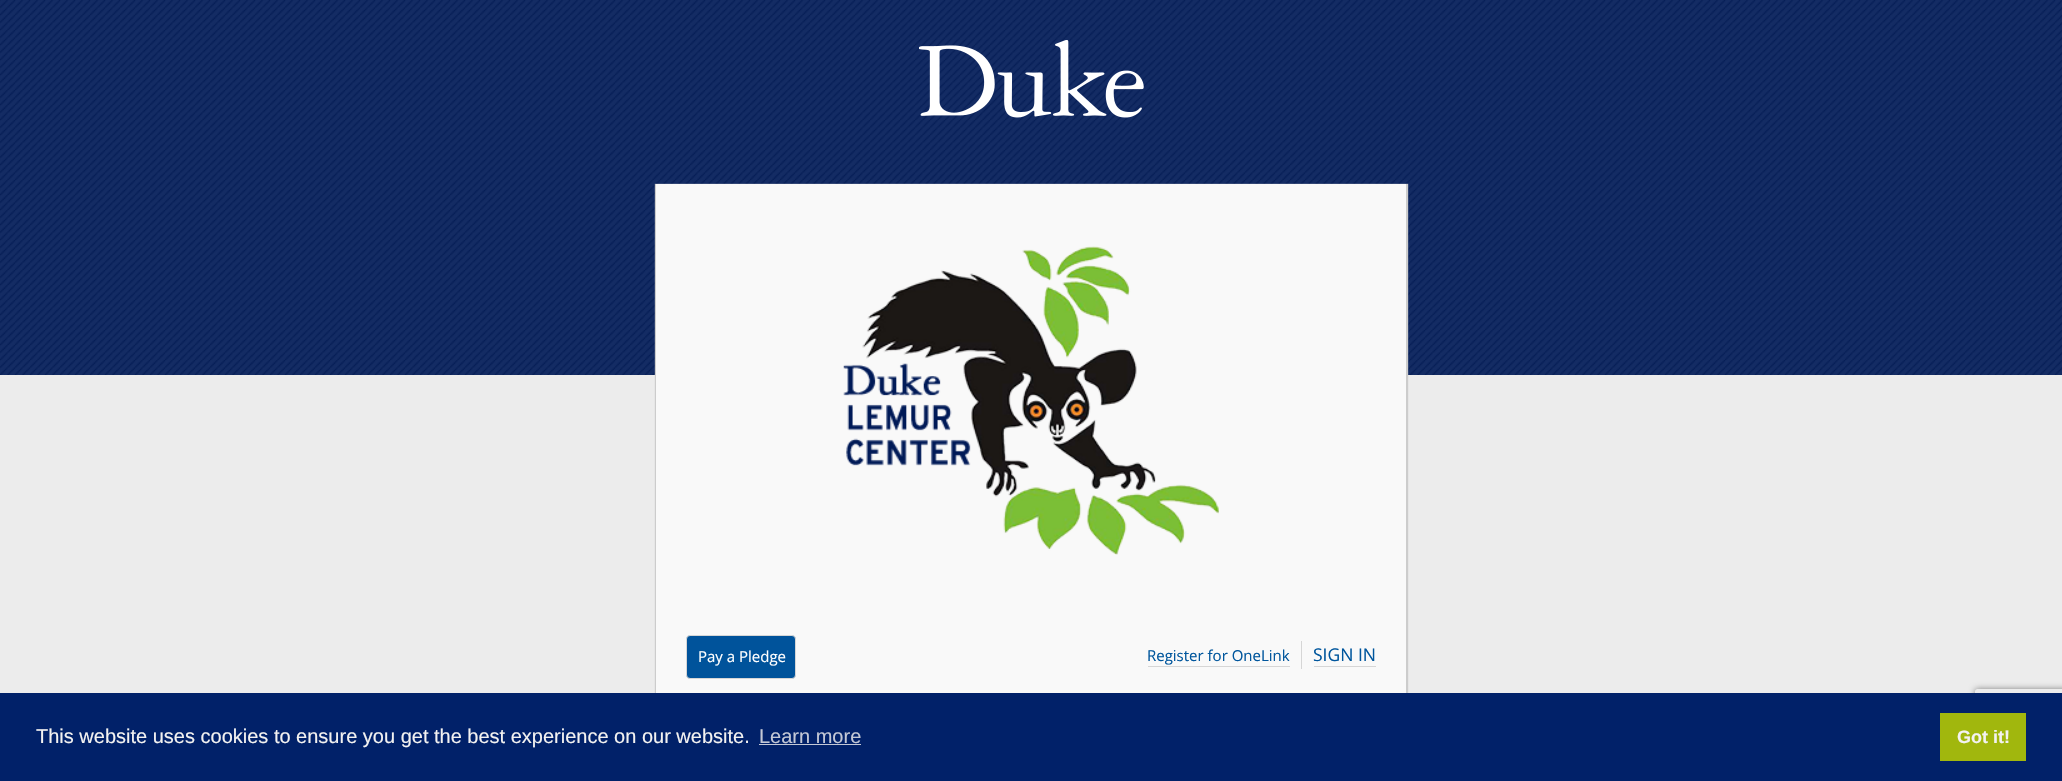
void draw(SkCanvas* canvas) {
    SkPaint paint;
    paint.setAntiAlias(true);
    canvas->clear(0xFFECECEC);
    canvas->drawImageRect(SkImages::DeferredFromEncodedData(SkData::MakeFromFileName("img1.png")), SkRect::MakeXYWH(0, 0, 2062, 375), SkSamplingOptions());
    canvas->drawImageRect(SkImages::DeferredFromEncodedData(SkData::MakeFromFileName("img2.png")), SkRect::MakeXYWH(919, 40, 225, 78), SkSamplingOptions());
    paint.setColor(0xFFCCCCCC);
    paint.setMaskFilter(SkMaskFilter::MakeBlur(kNormal_SkBlurStyle, 0.5f));
    canvas->drawRect(SkRect::MakeXYWH(655, 184, 753, 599), paint);
    paint.setMaskFilter(nullptr);
    paint.setColor(0xFFF9F9F9);
    canvas->drawRect(SkRect::MakeXYWH(656, 184, 750, 509), paint);
    canvas->drawImageRect(SkImages::DeferredFromEncodedData(SkData::MakeFromFileName("img3.png")), SkRect::MakeXYWH(843, 246, 376, 309), SkSamplingOptions());
    paint.setColor(0xFF00539B);
    canvas->drawRoundRect(SkRect::MakeXYWH(686.5f, 635.5f, 109, 43), 3.5f, 3.5f, paint);
    paint.setStyle(SkPaint::kStroke_Style);
    paint.setStrokeWidth(1);
    paint.setColor(0xFFD6D6D6);
    canvas->drawRoundRect(SkRect::MakeXYWH(686.5f, 635.5f, 109, 43), 3.5f, 3.5f, paint);
    SkFont font1(fontMgr->matchFamilyStyle("Open Sans", SkFontStyle::Normal()), 15);
    font1.setSubpixel(true);
    paint.setStyle(SkPaint::kFill_Style);
    paint.setColor(0xFFFFFFFF);
    canvas->drawString("Pay a Pledge", 698, 662, font1, paint);
    paint.setColor(0xFF00569D);
    canvas->drawString("Register for OneLink", 1147, 661, font1, paint);
    paint.setColor(0xFFD6D6D6);
    canvas->drawRect(SkRect::MakeXYWH(1148, 666, 142, 1), paint);
    canvas->drawRect(SkRect::MakeXYWH(1301, 641, 1, 28), paint);
    SkFont font2(fontMgr->matchFamilyStyle("Open Sans", SkFontStyle::Normal()), 17.5f);
    font2.setSubpixel(true);
    paint.setColor(0xFF00569D);
    canvas->drawString("SIGN IN", 1313, 661, font2, paint);
    paint.setColor(0xFFD6D6D6);
    canvas->drawRect(SkRect::MakeXYWH(1314, 666, 62, 1), paint);
    canvas->save();
    canvas->clipPath(SkPathBuilder(SkPathFillType::kEvenOdd).moveTo(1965, 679).lineTo(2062, 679).lineTo(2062, 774).lineTo(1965, 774).close().moveTo(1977.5f, 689).lineTo(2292.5f, 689).cubicTo(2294, 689, 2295, 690, 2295, 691.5f).lineTo(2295, 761.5f).cubicTo(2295, 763, 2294, 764, 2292.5f, 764).lineTo(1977.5f, 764).cubicTo(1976, 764, 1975, 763, 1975, 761.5f).lineTo(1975, 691.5f).cubicTo(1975, 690, 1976, 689, 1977.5f, 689).close().detach(), true);
    paint.setColor(0xFF808080);
    paint.setMaskFilter(SkMaskFilter::MakeBlur(kNormal_SkBlurStyle, 3));
    canvas->drawRoundRect(SkRect::MakeXYWH(1975, 689, 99, 75), 2.5f, 2.5f, paint);
    paint.setMaskFilter(nullptr);
    canvas->restore();
    paint.setColor(0xFF012169);
    canvas->drawRect(SkRect::MakeXYWH(0, 693, 2062, 88), paint);
    SkFont font3(fontMgr->matchFamilyStyle("Liberation Sans", SkFontStyle::Normal()), 20);
    font3.setSubpixel(true);
    paint.setColor(0xFFF3F2F1);
    canvas->drawString("This website uses cookies to ensure you get the best experience on our website.", 36, 743, font3, paint);
    paint.setColor(0xFFC3C8D6);
    canvas->drawString("Learn more", 759, 743, font3, paint);
    canvas->drawRect(SkRect::MakeXYWH(759, 744, 102, 1), paint);
    paint.setColor(0xFFA1B70D);
    canvas->drawRect(SkRect::MakeXYWH(1940, 713, 86, 48), paint);
    SkFont font4(fontMgr->matchFamilyStyle("Liberation Sans", SkFontStyle::Bold()), 18);
    font4.setSubpixel(true);
    paint.setColor(0xFFF3F2F1);
    canvas->drawString("Got it!", 1957, 743, font4, paint);
}
